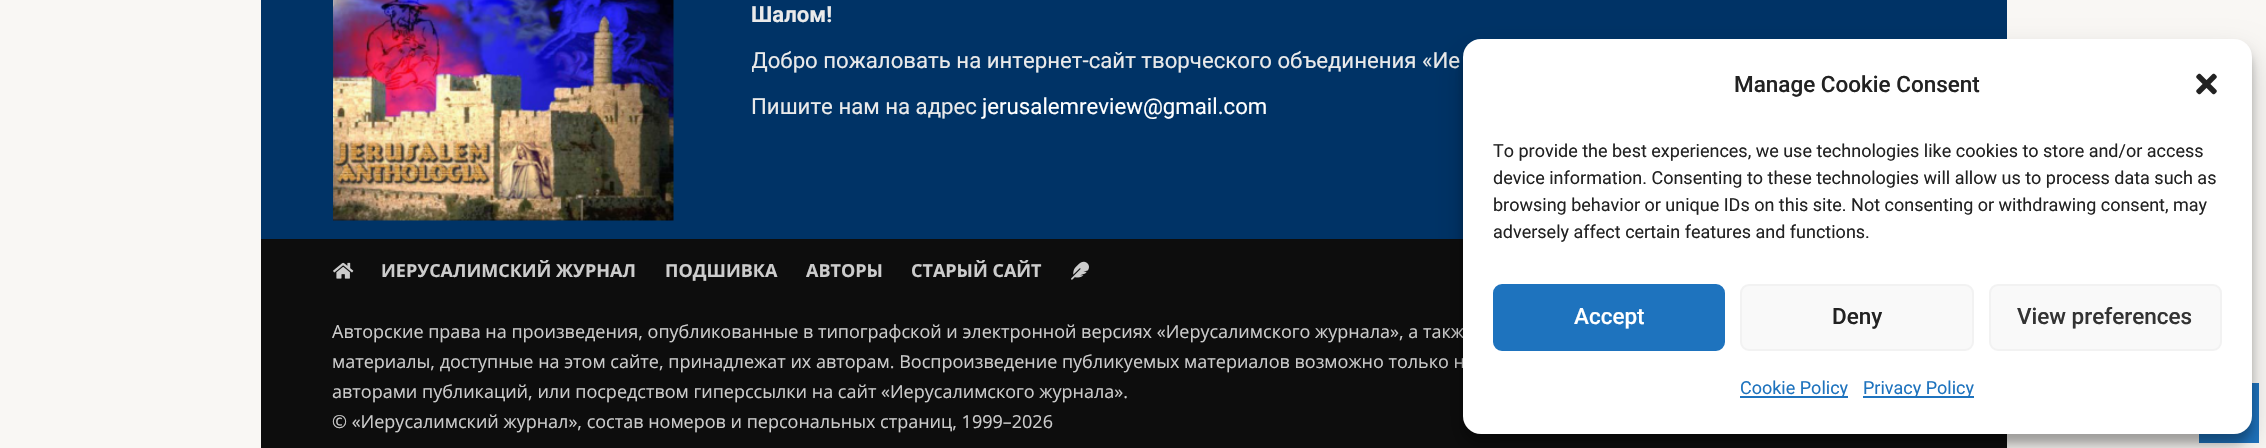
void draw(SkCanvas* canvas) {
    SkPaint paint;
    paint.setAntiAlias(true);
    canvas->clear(0xFFF9F7F4);
    paint.setColor(0xFF003366);
    canvas->drawRect(SkRect::MakeXYWH(261, 0, 1746, 239), paint);
    canvas->drawImageRect(SkImages::DeferredFromEncodedData(SkData::MakeFromFileName("img1.png")), SkRect::MakeXYWH(333, 0, 341, 221), SkSamplingOptions());
    SkFont font1(fontMgr->matchFamilyStyle("Roboto", SkFontStyle::Bold()), 22.2f);
    font1.setSubpixel(true);
    paint.setColor(0xFFEAEAEA);
    canvas->drawString("Шалом!", 751, 22, font1, paint);
    canvas->save();
    canvas->clipRect(SkRect::MakeXYWH(752, 0, 1183, 161));
    SkFont font2(fontMgr->matchFamilyStyle("Roboto", SkFontStyle::Normal()), 22.2f);
    font2.setSubpixel(true);
    canvas->drawString("Добро пожаловать на интернет-сайт творческого объединения «Ие", 751, 68, font2, paint);
    canvas->restore();
    canvas->drawString("Пишите нам на адрес", 751, 114, font2, paint);
    paint.setColor(0xFFFFFFFF);
    canvas->drawString("jerusalemreview@gmail.com", 982, 114, font2, paint);
    paint.setColor(0xFF0D0D0D);
    canvas->drawRect(SkRect::MakeXYWH(261, 239, 1746, 209), paint);
    canvas->drawImageRect(SkImages::DeferredFromEncodedData(SkData::MakeFromFileName("img2.png")), SkRect::MakeXYWH(333, 262, 21, 17), SkSamplingOptions());
    SkFont font3(fontMgr->matchFamilyStyle("Open Sans", SkFontStyle::Bold()), 18);
    font3.setSubpixel(true);
    paint.setColor(0xFFCCCCCC);
    canvas->drawString("ИЕРУСАЛИМСКИЙ ЖУРНАЛ", 381, 277, font3, paint);
    canvas->drawString("ПОДШИВКА", 665, 277, font3, paint);
    canvas->drawString("АВТОРЫ", 806, 277, font3, paint);
    canvas->drawString("СТАРЫЙ САЙТ", 911, 277, font3, paint);
    canvas->drawImageRect(SkImages::DeferredFromEncodedData(SkData::MakeFromFileName("img3.png")), SkRect::MakeXYWH(1071, 261, 18, 19), SkSamplingOptions());
    SkFont font4(fontMgr->matchFamilyStyle("Open Sans", SkFontStyle::Normal()), 18);
    font4.setSubpixel(true);
    canvas->drawString("Авторские права на произведения, опубликованные в типографской и электронной версиях «Иерусалимского журнала», а такж", 332, 338, font4, paint);
    canvas->drawString("материалы, доступные на этом сайте, принадлежат их авторам. Воспроизведение публикуемых материалов возможно только н", 332, 368, font4, paint);
    canvas->drawString("авторами публикаций, или посредством гиперссылки на сайт «Иерусалимского журнала».", 332, 398, font4, paint);
    canvas->drawString("© «Иерусалимский журнал», состав номеров и персональных страниц, 1999–2026", 332, 428, font4, paint);
    paint.setColor(0xFF1E73BE);
    canvas->drawRect(SkRect::MakeXYWH(2199, 383, 60, 60), paint);
    paint.setColor(0x3B000000);
    paint.setMaskFilter(SkMaskFilter::MakeBlur(kNormal_SkBlurStyle, 4.5f));
    canvas->drawRoundRect(SkRect::MakeXYWH(1463, 48, 789, 395), 18, 18, paint);
    paint.setMaskFilter(nullptr);
    paint.setColor(0x30000000);
    paint.setMaskFilter(SkMaskFilter::MakeBlur(kNormal_SkBlurStyle, 15));
    canvas->drawRoundRect(SkRect::MakeXYWH(1463, 54, 789, 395), 18, 18, paint);
    paint.setMaskFilter(nullptr);
    paint.setColor(0xFFFFFFFF);
    canvas->drawRoundRect(SkRect::MakeXYWH(1463, 39, 789, 395), 18, 18, paint);
    SkFont font5(fontMgr->matchFamilyStyle("Roboto", SkFontStyle(500, SkFontStyle::kNormal_Width, SkFontStyle::kUpright_Slant)), 22.5f);
    font5.setSubpixel(true);
    paint.setColor(0xFF222222);
    canvas->drawString("Manage Cookie Consent", 1734, 92, font5, paint);
    canvas->drawImageRect(SkImages::DeferredFromEncodedData(SkData::MakeFromFileName("img4.png")), SkRect::MakeXYWH(2196, 73, 21, 22), SkSamplingOptions());
    SkFont font6(fontMgr->matchFamilyStyle("Roboto", SkFontStyle::Normal()), 18);
    font6.setSubpixel(true);
    canvas->drawString("To provide the best experiences, we use technologies like cookies to store and/or access", 1493, 157, font6, paint);
    canvas->drawString("device information. Consenting to these technologies will allow us to process data such as", 1493, 184, font6, paint);
    canvas->drawString("browsing behavior or unique IDs on this site. Not consenting or withdrawing consent, may", 1493, 211, font6, paint);
    canvas->drawString("adversely affect certain features and functions.", 1493, 238, font6, paint);
    paint.setColor(0xFF1E73BE);
    canvas->drawRoundRect(SkRect::MakeXYWH(1494, 285, 230, 65), 8, 8, paint);
    paint.setStyle(SkPaint::kStroke_Style);
    paint.setStrokeWidth(2);
    canvas->drawRoundRect(SkRect::MakeXYWH(1494, 285, 230, 65), 8, 8, paint);
    paint.setStyle(SkPaint::kFill_Style);
    paint.setColor(0xFFFFFFFF);
    canvas->drawString("Accept", 1574, 324, font5, paint);
    paint.setColor(0xFFF9F9F9);
    canvas->drawRoundRect(SkRect::MakeXYWH(1741, 285, 232, 65), 8, 8, paint);
    paint.setStyle(SkPaint::kStroke_Style);
    paint.setColor(0xFFF2F2F2);
    canvas->drawRoundRect(SkRect::MakeXYWH(1741, 285, 232, 65), 8, 8, paint);
    paint.setStyle(SkPaint::kFill_Style);
    paint.setColor(0xFF222222);
    canvas->drawString("Deny", 1832, 324, font5, paint);
    paint.setColor(0xFFF9F9F9);
    canvas->drawRoundRect(SkRect::MakeXYWH(1990, 285, 231, 65), 8, 8, paint);
    paint.setStyle(SkPaint::kStroke_Style);
    paint.setColor(0xFFF2F2F2);
    canvas->drawRoundRect(SkRect::MakeXYWH(1990, 285, 231, 65), 8, 8, paint);
    paint.setStyle(SkPaint::kFill_Style);
    paint.setColor(0xFF333333);
    canvas->drawString("View preferences", 2017, 324, font5, paint);
    paint.setColor(0xFF1E73BE);
    canvas->drawRect(SkRect::MakeXYWH(1740, 396, 108, 2), paint);
    canvas->drawString("Cookie Policy", 1740, 394, font6, paint);
    canvas->drawRect(SkRect::MakeXYWH(1863, 396, 111, 2), paint);
    canvas->drawString("Privacy Policy", 1863, 394, font6, paint);
}
